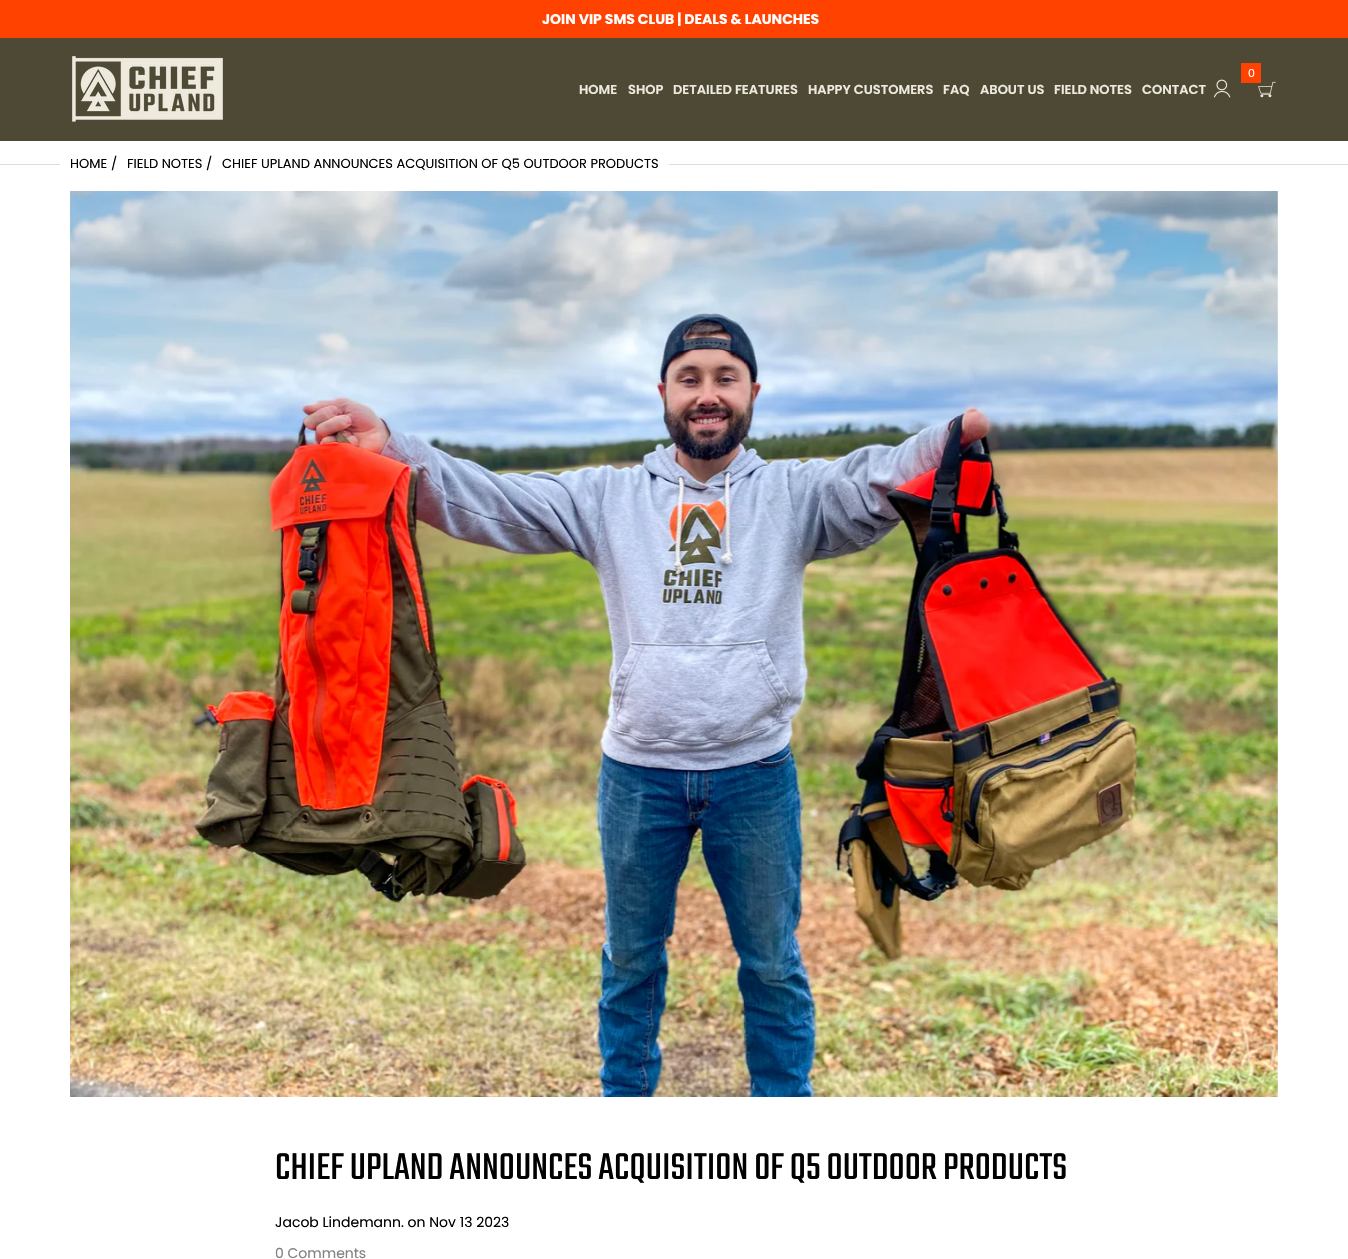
void draw(SkCanvas* canvas) {
    SkPaint paint;
    paint.setAntiAlias(true);
    canvas->clear(0xFFFFFFFF);
    paint.setColor(0xFFFF4200);
    canvas->drawRect(SkRect::MakeXYWH(0, 0, 1348, 38), paint);
    SkFont font1(fontMgr->matchFamilyStyle("Poppins", SkFontStyle::Bold()), 14);
    font1.setSubpixel(true);
    paint.setColor(0xFFFFFFFF);
    canvas->drawString("JOIN VIP SMS CLUB | DEALS & LAUNCHES", 542, 24, font1, paint);
    paint.setColor(0xFF4E4934);
    canvas->drawRect(SkRect::MakeXYWH(0, 38, 1348, 103), paint);
    canvas->drawImageRect(SkImages::DeferredFromEncodedData(SkData::MakeFromFileName("img1.png")), SkRect::MakeXYWH(72, 56, 151, 66), SkSamplingOptions());
    canvas->drawImageRect(SkImages::DeferredFromEncodedData(SkData::MakeFromFileName("img2.png")), SkRect::MakeXYWH(1258, 81, 18, 17), SkSamplingOptions());
    paint.setColor(0xFFFF4200);
    canvas->drawRect(SkRect::MakeXYWH(1241, 63, 20, 20), paint);
    SkFont font2(fontMgr->matchFamilyStyle("Poppins", SkFontStyle::Normal()), 11);
    font2.setSubpixel(true);
    paint.setColor(0xFFFFFFFF);
    canvas->drawString("0", 1248, 77, font2, paint);
    canvas->drawImageRect(SkImages::DeferredFromEncodedData(SkData::MakeFromFileName("img3.png")), SkRect::MakeXYWH(1214, 79, 17, 19), SkSamplingOptions());
    SkFont font3(fontMgr->matchFamilyStyle("Poppins", SkFontStyle(600, SkFontStyle::kNormal_Width, SkFontStyle::kUpright_Slant)), 13);
    font3.setSubpixel(true);
    paint.setColor(0xFFEDEADF);
    canvas->drawString("HOME", 579, 94, font3, paint);
    canvas->drawString("SHOP", 628, 94, font3, paint);
    canvas->drawString("DETAILED FEATURES", 673, 94, font3, paint);
    canvas->drawString("HAPPY CUSTOMERS", 808, 94, font3, paint);
    canvas->drawString("FAQ", 943, 94, font3, paint);
    canvas->drawString("ABOUT US", 980, 94, font3, paint);
    canvas->drawString("FIELD NOTES", 1054, 94, font3, paint);
    canvas->drawString("CONTACT", 1142, 94, font3, paint);
    paint.setColor(0xFFDDDDDD);
    canvas->drawRect(SkRect::MakeXYWH(0, 164, 60, 1), paint);
    SkFont font4(fontMgr->matchFamilyStyle("Poppins", SkFontStyle::Normal()), 13);
    font4.setSubpixel(true);
    paint.setColor(0xFF000000);
    canvas->drawString("HOME", 70, 168, font4, paint);
    canvas->drawString("/", 111, 168, font4, paint);
    canvas->drawString("FIELD NOTES", 127, 168, font4, paint);
    canvas->drawString("/", 206, 168, font4, paint);
    canvas->drawString("CHIEF UPLAND ANNOUNCES ACQUISITION OF Q5 OUTDOOR PRODUCTS", 222, 168, font4, paint);
    paint.setColor(0xFFDDDDDD);
    canvas->drawRect(SkRect::MakeXYWH(669, 164, 679, 1), paint);
    canvas->drawImageRect(SkImages::DeferredFromEncodedData(SkData::MakeFromFileName("img4.png")), SkRect::MakeXYWH(70, 191, 1208, 906), SkSamplingOptions());
    SkFont font5(fontMgr->matchFamilyStyle("Teko", SkFontStyle::Normal()), 41);
    font5.setSubpixel(true);
    paint.setColor(0xFF000000);
    canvas->drawString("CHIEF UPLAND ANNOUNCES ACQUISITION OF Q5 OUTDOOR PRODUCTS", 275, 1179, font5, paint);
    SkFont font6(fontMgr->matchFamilyStyle("Poppins", SkFontStyle::Normal()), 14);
    font6.setSubpixel(true);
    canvas->drawString("Jacob Lindemann. on Nov 13 2023", 275, 1227, font6, paint);
    paint.setColor(0xFF808080);
    canvas->drawString("0 Comments", 275, 1258, font6, paint);
}
